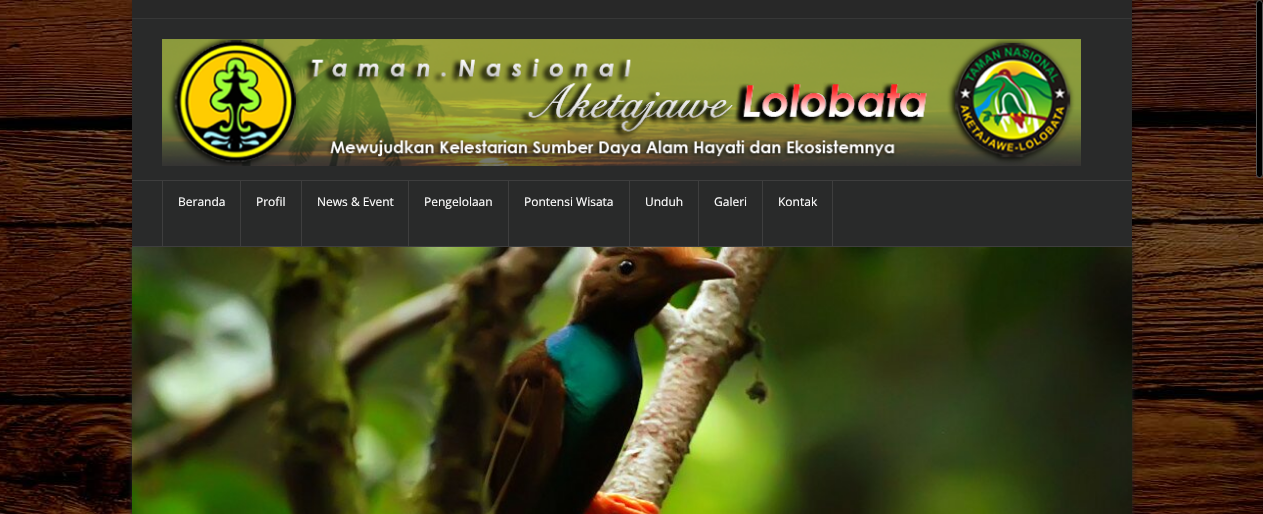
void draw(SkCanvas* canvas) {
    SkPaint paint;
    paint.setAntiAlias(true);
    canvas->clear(0xFFFFFFFF);
    canvas->drawImageRect(SkImages::DeferredFromEncodedData(SkData::MakeFromFileName("img1.png")), SkRect::MakeXYWH(0, 0, 1263, 514), SkSamplingOptions());
    paint.setColor(0xFF000000);
    canvas->drawRoundRect(SkRect::MakeXYWH(1256.5f, 0.5f, 6, 177), 3, 3, paint);
    paint.setStyle(SkPaint::kStroke_Style);
    paint.setStrokeWidth(1);
    paint.setColor(0xFF555555);
    canvas->drawRoundRect(SkRect::MakeXYWH(1256.5f, 0.5f, 6, 177), 3, 3, paint);
    paint.setStyle(SkPaint::kFill_Style);
    paint.setColor(0x33000000);
    paint.setMaskFilter(SkMaskFilter::MakeBlur(kNormal_SkBlurStyle, 3));
    canvas->drawRect(SkRect::MakeXYWH(132, 0, 1000, 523), paint);
    paint.setMaskFilter(nullptr);
    paint.setColor(0xFF282828);
    canvas->drawRect(SkRect::MakeXYWH(132, 0, 1000, 18), paint);
    paint.setColor(0xFF373737);
    canvas->drawRect(SkRect::MakeXYWH(132, 18, 1000, 1), paint);
    paint.setColor(0xFF292A2A);
    canvas->drawRect(SkRect::MakeXYWH(132, 19, 1000, 227), paint);
    canvas->drawImageRect(SkImages::DeferredFromEncodedData(SkData::MakeFromFileName("img2.png")), SkRect::MakeXYWH(162, 39, 919, 127), SkSamplingOptions());
    paint.setColor(0xFF3E3E3E);
    canvas->drawRect(SkRect::MakeXYWH(132, 180, 1000, 1), paint);
    paint.setColor(0xFF292929);
    paint.setMaskFilter(SkMaskFilter::MakeBlur(kNormal_SkBlurStyle, 2));
    canvas->drawRect(SkRect::MakeXYWH(132, 248, 1000, 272), paint);
    paint.setMaskFilter(nullptr);
    paint.setColor(0xFF3E3E3E);
    canvas->drawRect(SkRect::MakeXYWH(132, 246, 1000, 1), paint);
    canvas->drawRect(SkRect::MakeXYWH(240, 181, 1, 65), paint);
    canvas->drawRect(SkRect::MakeXYWH(162, 181, 1, 65), paint);
    SkFont font1(fontMgr->matchFamilyStyle("Open Sans", SkFontStyle::Normal()), 12);
    font1.setSubpixel(true);
    paint.setColor(0xFFFFFFFF);
    canvas->drawString("Beranda", 178, 206, font1, paint);
    paint.setColor(0xFF3E3E3E);
    canvas->drawRect(SkRect::MakeXYWH(301, 181, 1, 65), paint);
    paint.setColor(0xFFFFFFFF);
    canvas->drawString("Profil", 256, 206, font1, paint);
    paint.setColor(0xFF3E3E3E);
    canvas->drawRect(SkRect::MakeXYWH(408, 181, 1, 65), paint);
    paint.setColor(0xFFFFFFFF);
    canvas->drawString("News & Event", 317, 206, font1, paint);
    paint.setColor(0xFF3E3E3E);
    canvas->drawRect(SkRect::MakeXYWH(508, 181, 1, 65), paint);
    paint.setColor(0xFFFFFFFF);
    canvas->drawString("Pengelolaan", 424, 206, font1, paint);
    paint.setColor(0xFF3E3E3E);
    canvas->drawRect(SkRect::MakeXYWH(629, 181, 1, 65), paint);
    paint.setColor(0xFFFFFFFF);
    canvas->drawString("Pontensi Wisata", 524, 206, font1, paint);
    paint.setColor(0xFF3E3E3E);
    canvas->drawRect(SkRect::MakeXYWH(698, 181, 1, 65), paint);
    paint.setColor(0xFFFFFFFF);
    canvas->drawString("Unduh", 645, 206, font1, paint);
    paint.setColor(0xFF3E3E3E);
    canvas->drawRect(SkRect::MakeXYWH(762, 181, 1, 65), paint);
    paint.setColor(0xFFFFFFFF);
    canvas->drawString("Galeri", 714, 206, font1, paint);
    paint.setColor(0xFF3E3E3E);
    canvas->drawRect(SkRect::MakeXYWH(832, 181, 1, 65), paint);
    paint.setColor(0xFFFFFFFF);
    canvas->drawString("Kontak", 778, 206, font1, paint);
    canvas->drawImageRect(SkImages::DeferredFromEncodedData(SkData::MakeFromFileName("img3.png")), SkRect::MakeXYWH(132, 247, 1000, 267), SkSamplingOptions());
}
